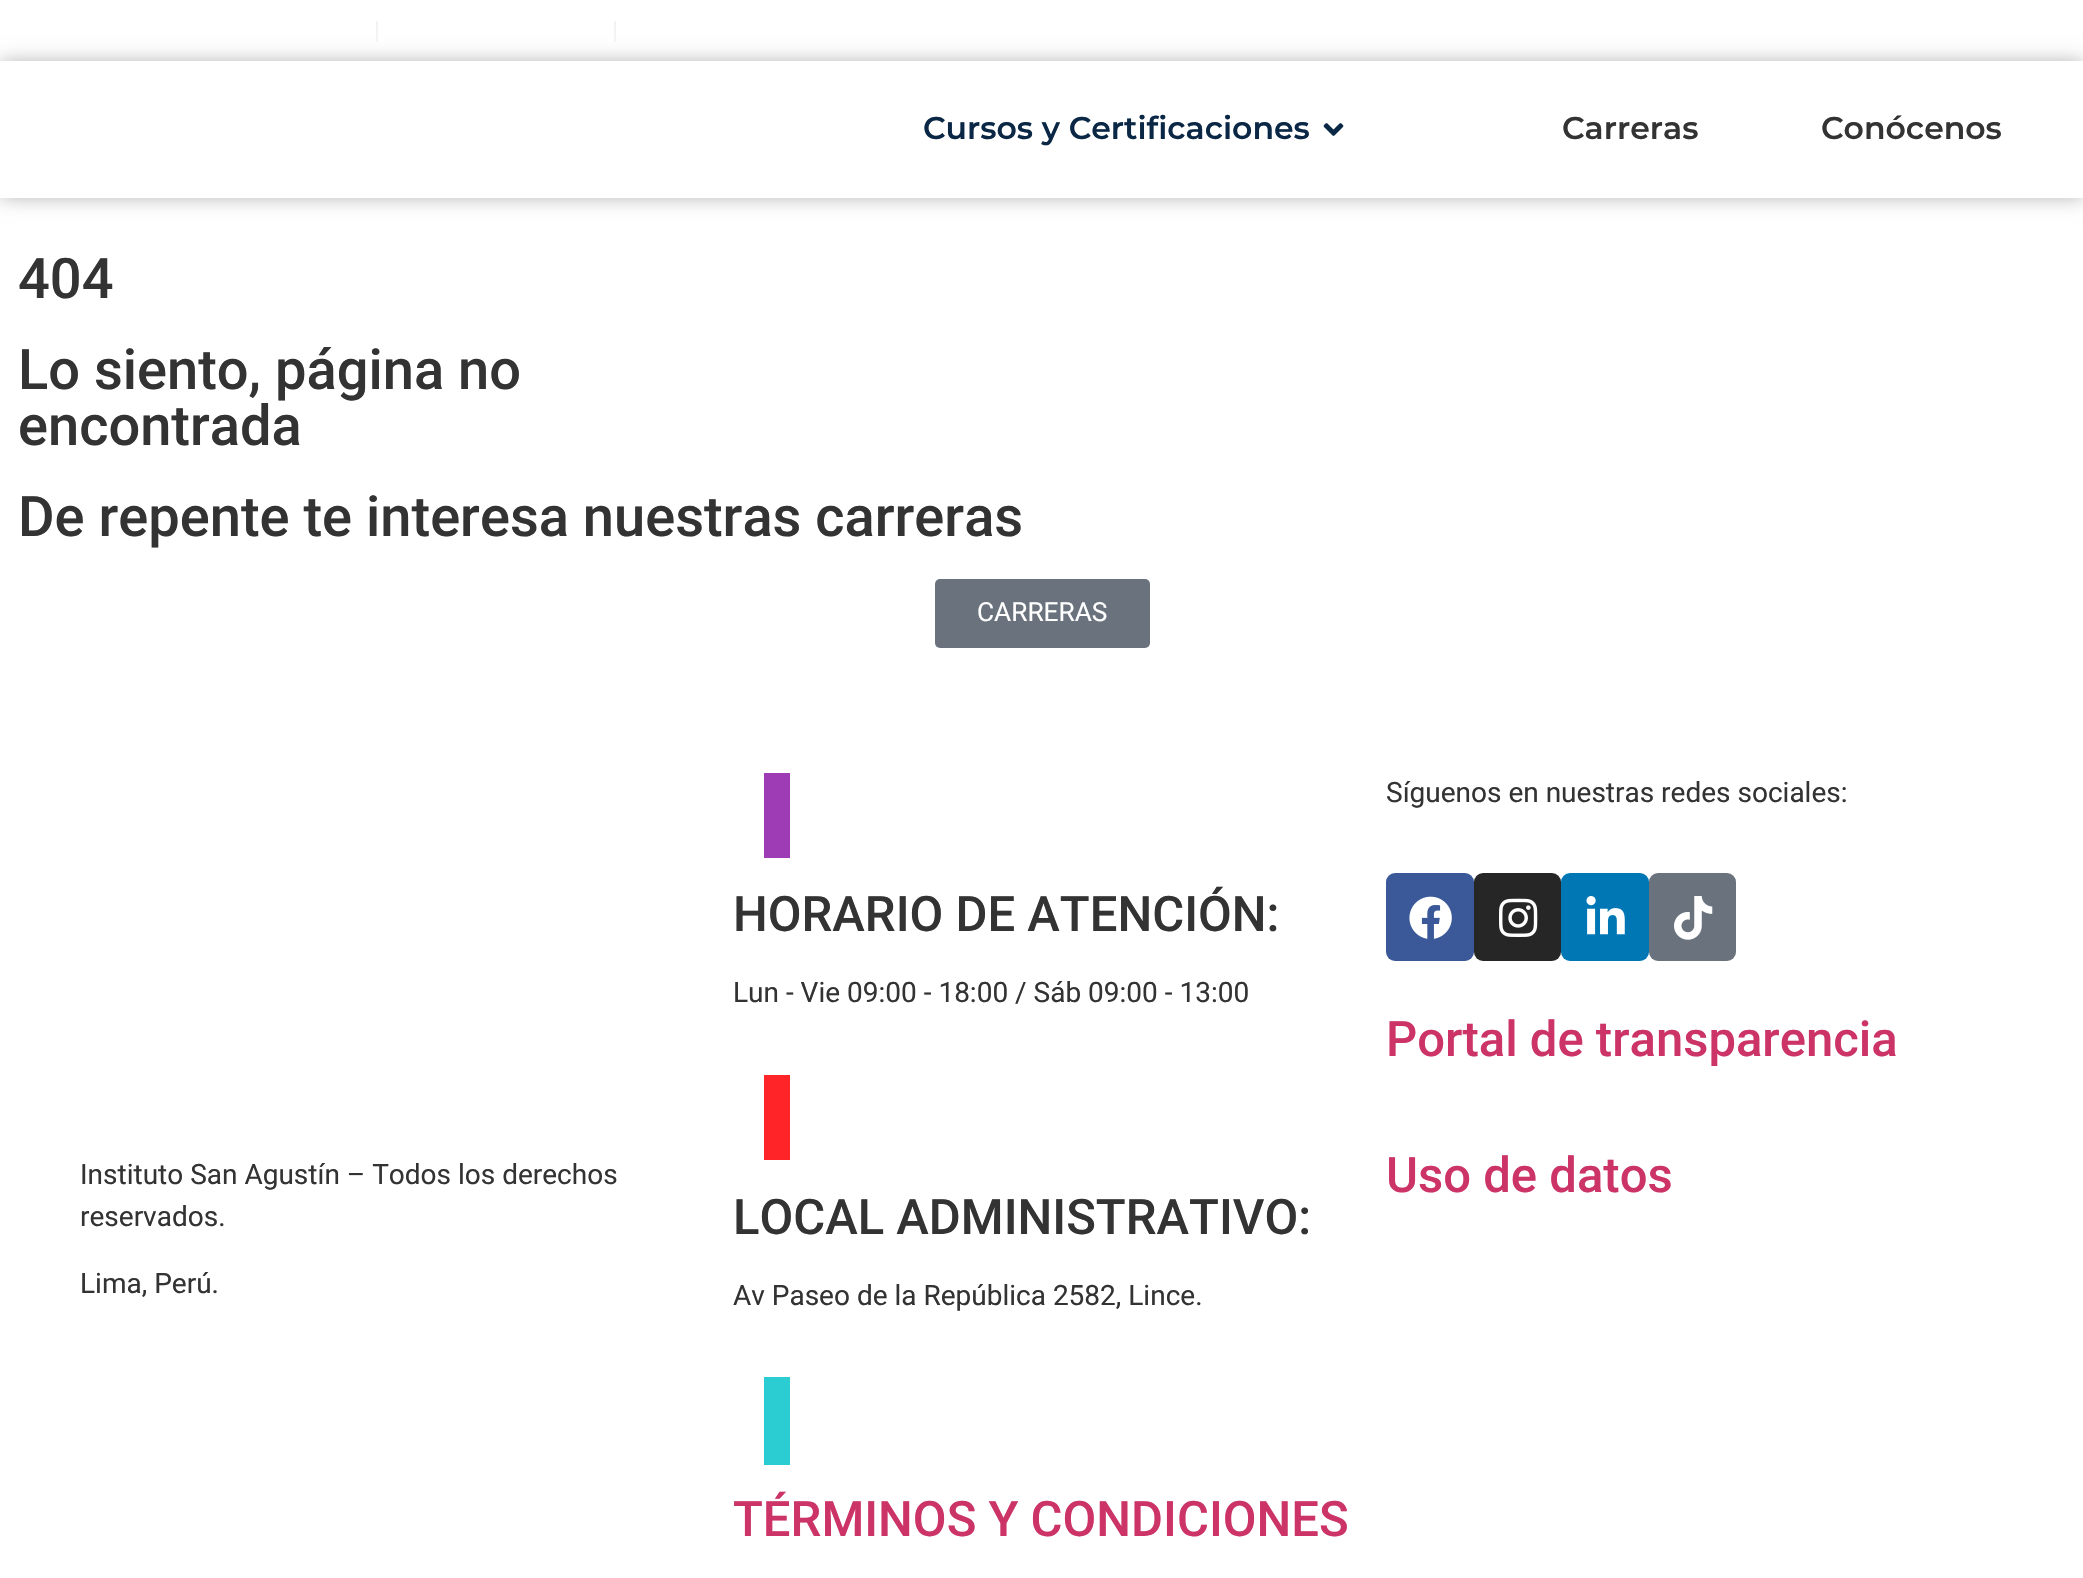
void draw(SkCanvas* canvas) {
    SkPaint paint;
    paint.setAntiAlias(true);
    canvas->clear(0xFFFFFFFF);
    paint.setColor(0x47000000);
    paint.setMaskFilter(SkMaskFilter::MakeBlur(kNormal_SkBlurStyle, 9));
    canvas->drawRect(SkRect::MakeXYWH(0, 61, 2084, 137), paint);
    paint.setMaskFilter(nullptr);
    paint.setColor(0xFFF3F3F3);
    canvas->drawRect(SkRect::MakeXYWH(376, 21, 2, 21), paint);
    canvas->drawRect(SkRect::MakeXYWH(614, 21, 2, 21), paint);
    paint.setColor(0xFFFFFFFF);
    canvas->drawRect(SkRect::MakeXYWH(0, 61, 2083, 137), paint);
    SkFont font1(fontMgr->matchFamilyStyle("Montserrat", SkFontStyle(600, SkFontStyle::kNormal_Width, SkFontStyle::kUpright_Slant)), 31.5f);
    font1.setSubpixel(true);
    paint.setColor(0xFF0A2745);
    canvas->drawString("Cursos y Certificaciones", 923, 139, font1, paint);
    canvas->drawImageRect(SkImages::DeferredFromEncodedData(SkData::MakeFromFileName("img1.png")), SkRect::MakeXYWH(1323, 123, 21, 13), SkSamplingOptions());
    paint.setColor(0xFF333333);
    canvas->drawString("Carreras", 1562, 139, font1, paint);
    canvas->drawString("Conócenos", 1821, 139, font1, paint);
    SkFont font2(fontMgr->matchFamilyStyle("Roboto", SkFontStyle(500, SkFontStyle::kNormal_Width, SkFontStyle::kUpright_Slant)), 56);
    font2.setSubpixel(true);
    canvas->drawString("404", 18, 298, font2, paint);
    canvas->drawString("Lo siento, página no", 18, 389, font2, paint);
    canvas->drawString("encontrada", 18, 445, font2, paint);
    canvas->drawString("De repente te interesa nuestras carreras", 18, 536, font2, paint);
    paint.setColor(0xFF69727D);
    canvas->drawRoundRect(SkRect::MakeXYWH(935, 579, 215, 69), 5, 5, paint);
    SkFont font3(fontMgr->matchFamilyStyle("Roboto", SkFontStyle::Normal()), 26.25f);
    font3.setSubpixel(true);
    paint.setColor(0xFFFFFFFF);
    canvas->drawString("CARRERAS", 977, 621, font3, paint);
    SkFont font4(fontMgr->matchFamilyStyle("Roboto", SkFontStyle::Normal()), 28);
    font4.setSubpixel(true);
    paint.setColor(0xFF333333);
    canvas->drawString("Instituto San Agustín – Todos los derechos", 80, 1184, font4, paint);
    canvas->drawString("reservados.", 80, 1226, font4, paint);
    canvas->drawString("Lima, Perú.", 80, 1293, font4, paint);
    paint.setColor(0xFF9E3CB5);
    canvas->drawRect(SkRect::MakeXYWH(764, 773, 26, 85), paint);
    SkFont font5(fontMgr->matchFamilyStyle("Roboto", SkFontStyle(500, SkFontStyle::kNormal_Width, SkFontStyle::kUpright_Slant)), 49);
    font5.setSubpixel(true);
    paint.setColor(0xFF333333);
    canvas->drawString("HORARIO DE ATENCIÓN:", 733, 931, font5, paint);
    canvas->drawString("Lun - Vie 09:00 - 18:00 / Sáb 09:00 - 13:00", 733, 1002, font4, paint);
    paint.setColor(0xFFFF2427);
    canvas->drawRect(SkRect::MakeXYWH(764, 1075, 26, 85), paint);
    paint.setColor(0xFF333333);
    canvas->drawString("LOCAL ADMINISTRATIVO:", 733, 1234, font5, paint);
    canvas->drawString("Av Paseo de la República 2582, Lince.", 733, 1305, font4, paint);
    paint.setColor(0xFF2CCCD3);
    canvas->drawRect(SkRect::MakeXYWH(764, 1377, 26, 88), paint);
    paint.setColor(0xFFCC3366);
    canvas->drawString("TÉRMINOS Y CONDICIONES", 733, 1536, font5, paint);
    paint.setColor(0xFF333333);
    canvas->drawString("Síguenos en nuestras redes sociales:", 1386, 802, font4, paint);
    paint.setColor(0xFF3B5998);
    canvas->drawRoundRect(SkRect::MakeXYWH(1386, 873, 88, 88), 9, 9, paint);
    canvas->drawImageRect(SkImages::DeferredFromEncodedData(SkData::MakeFromFileName("img2.png")), SkRect::MakeXYWH(1409, 896, 43, 43), SkSamplingOptions());
    paint.setColor(0xFF262626);
    canvas->drawRoundRect(SkRect::MakeXYWH(1474, 873, 87, 88), 9, 9, paint);
    canvas->drawImageRect(SkImages::DeferredFromEncodedData(SkData::MakeFromFileName("img3.png")), SkRect::MakeXYWH(1499, 898, 39, 39), SkSamplingOptions());
    paint.setColor(0xFF0077B5);
    canvas->drawRoundRect(SkRect::MakeXYWH(1561, 873, 88, 88), 9, 9, paint);
    canvas->drawImageRect(SkImages::DeferredFromEncodedData(SkData::MakeFromFileName("img4.png")), SkRect::MakeXYWH(1586, 896, 39, 39), SkSamplingOptions());
    paint.setColor(0xFF69727D);
    canvas->drawRoundRect(SkRect::MakeXYWH(1649, 873, 87, 88), 9, 9, paint);
    canvas->drawImageRect(SkImages::DeferredFromEncodedData(SkData::MakeFromFileName("img5.png")), SkRect::MakeXYWH(1674, 896, 39, 44), SkSamplingOptions());
    paint.setColor(0xFFCC3366);
    canvas->drawString("Portal de transparencia", 1386, 1056, font5, paint);
    canvas->drawString("Uso de datos", 1386, 1192, font5, paint);
}
